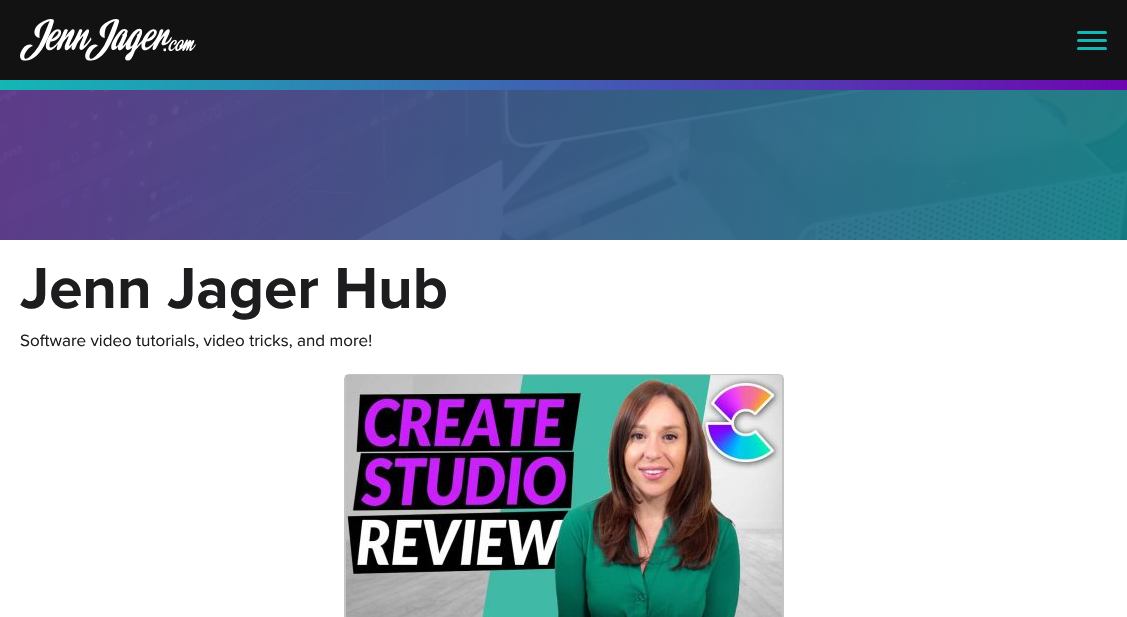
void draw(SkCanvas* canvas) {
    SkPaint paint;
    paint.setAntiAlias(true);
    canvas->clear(0xFFFFFFFF);
    paint.setColor(0xFF121212);
    canvas->drawRect(SkRect::MakeXYWH(0, 0, 1127, 80), paint);
    canvas->drawImageRect(SkImages::DeferredFromEncodedData(SkData::MakeFromFileName("img1.png")), SkRect::MakeXYWH(20, 19, 176, 42), SkSamplingOptions());
    paint.setColor(0xFF13B7B5);
    canvas->drawRoundRect(SkRect::MakeXYWH(1077, 31, 30, 3), 1.5f, 1.5f, paint);
    canvas->drawRoundRect(SkRect::MakeXYWH(1077, 39, 30, 3), 1.5f, 1.5f, paint);
    canvas->drawRoundRect(SkRect::MakeXYWH(1077, 47, 30, 3), 1.5f, 1.5f, paint);
    {
        const SkColor colors[] = {0xFF13B7B5, 0xFF6D06B1};
        const float stops[] = {0, 1};
        const SkPoint ends[] = {{0, 85}, {1127, 85}};
        paint.setShader(SkGradientShader::MakeLinear(ends, colors, stops, 2, SkTileMode::kClamp));
        paint.setAlpha(255);
    }
    canvas->drawRect(SkRect::MakeXYWH(0, 80, 1127, 10), paint);
    canvas->drawImageRect(SkImages::DeferredFromEncodedData(SkData::MakeFromFileName("img2.png")), SkRect::MakeXYWH(0, 90, 1127, 150), SkSamplingOptions());
    SkFont font1(fontMgr->matchFamilyStyle("Proxima Nova", SkFontStyle::Bold()), 60);
    font1.setSubpixel(true);
    paint.setShader(nullptr);
    paint.setColor(0xFF1D1D1F);
    canvas->drawString("Jenn Jager Hub", 20, 308, font1, paint);
    SkFont font2(fontMgr->matchFamilyStyle("Proxima Nova", SkFontStyle::Normal()), 17);
    font2.setSubpixel(true);
    canvas->drawString("Software video tutorials, video tricks, and more!", 20, 346, font2, paint);
    paint.setStyle(SkPaint::kStroke_Style);
    paint.setStrokeWidth(1);
    paint.setColor(0xFFC4C4C4);
    canvas->drawRoundRect(SkRect::MakeXYWH(344.5f, 374.5f, 439, 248), 4.5f, 4.5f, paint);
    paint.setStyle(SkPaint::kFill_Style);
    canvas->drawRect(SkRect::MakeXYWH(345, 375, 438, 242), paint);
    canvas->drawImageRect(SkImages::DeferredFromEncodedData(SkData::MakeFromFileName("img3.png")), SkRect::MakeXYWH(346, 375, 436, 242), SkSamplingOptions());
}
